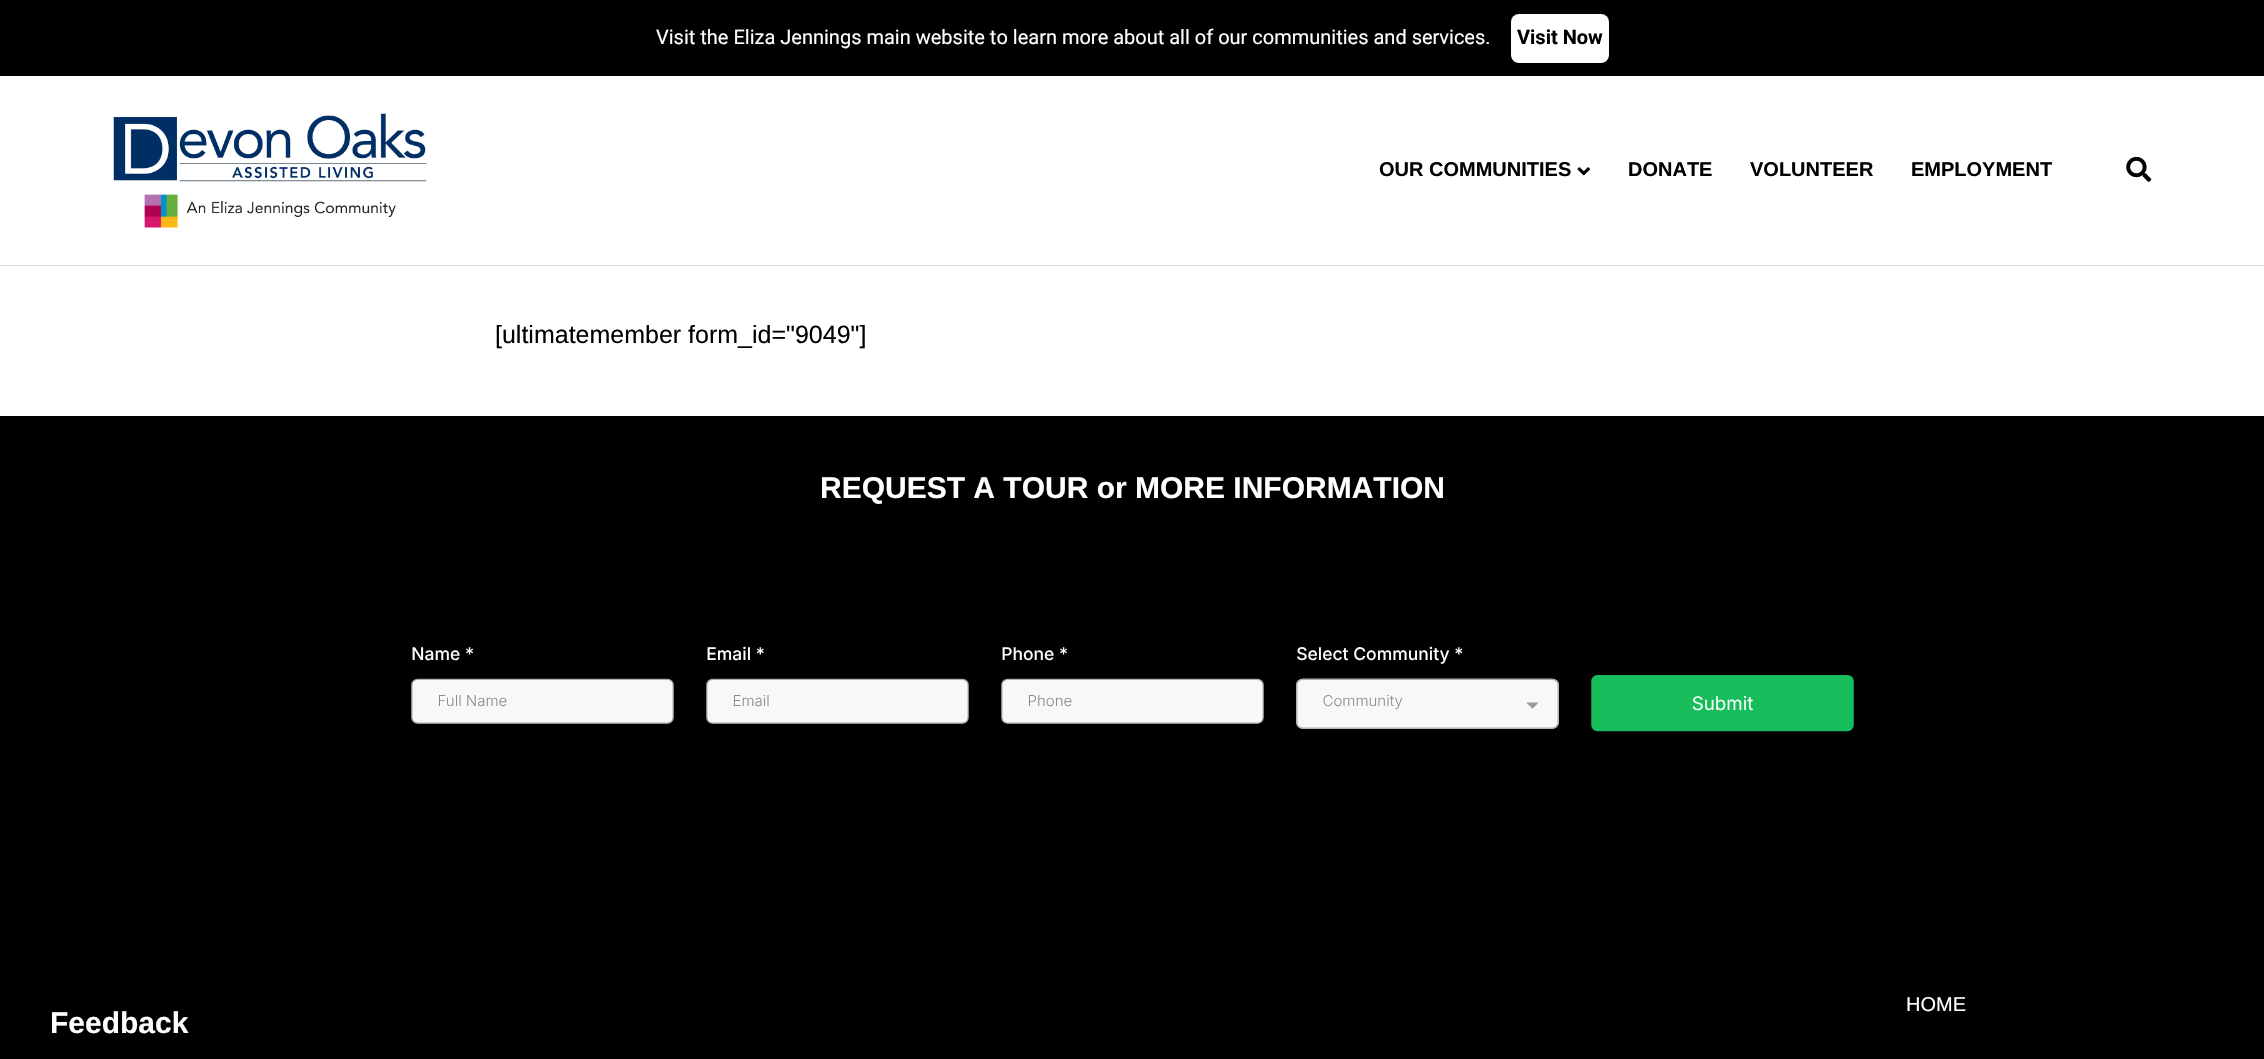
void draw(SkCanvas* canvas) {
    SkPaint paint;
    paint.setAntiAlias(true);
    canvas->clear(0xFFFFFFFF);
    paint.setColor(0xFF000000);
    canvas->drawRect(SkRect::MakeXYWH(0, 0, 2264, 76), paint);
    SkFont font1(fontMgr->matchFamilyStyle("Roboto", SkFontStyle::Normal()), 20);
    font1.setSubpixel(true);
    paint.setColor(0xFFFFFFFF);
    canvas->drawString("Visit the Eliza Jennings main website to learn more about all of our communities and services.", 656, 44, font1, paint);
    canvas->drawRoundRect(SkRect::MakeXYWH(1511, 14, 98, 49), 8, 8, paint);
    SkFont font2(fontMgr->matchFamilyStyle("Roboto", SkFontStyle::Bold()), 20);
    font2.setSubpixel(true);
    paint.setColor(0xFF000000);
    canvas->drawString("Visit Now", 1517, 44, font2, paint);
    paint.setColor(0xFFDEDEDE);
    canvas->drawRect(SkRect::MakeXYWH(0, 265, 2264, 1), paint);
    canvas->drawImageRect(SkImages::DeferredFromEncodedData(SkData::MakeFromFileName("img1.png")), SkRect::MakeXYWH(113, 113, 314, 115), SkSamplingOptions());
    SkFont font3(fontMgr->matchFamilyStyle("Liberation Sans", SkFontStyle::Bold()), 20);
    font3.setSubpixel(true);
    paint.setColor(0xFF000000);
    canvas->drawString("OUR COMMUNITIES", 1379, 176, font3, paint);
    canvas->drawImageRect(SkImages::DeferredFromEncodedData(SkData::MakeFromFileName("img2.png")), SkRect::MakeXYWH(1577, 167, 13, 9), SkSamplingOptions());
    canvas->drawString("DONATE", 1628, 176, font3, paint);
    canvas->drawString("VOLUNTEER", 1750, 176, font3, paint);
    canvas->drawString("EMPLOYMENT", 1911, 176, font3, paint);
    canvas->drawImageRect(SkImages::DeferredFromEncodedData(SkData::MakeFromFileName("img3.png")), SkRect::MakeXYWH(2126, 156, 26, 26), SkSamplingOptions());
    SkFont font4(fontMgr->matchFamilyStyle("Liberation Sans", SkFontStyle::Normal()), 25);
    font4.setSubpixel(true);
    canvas->drawString("[ultimatemember form_id=\"9049\"]", 495, 343, font4, paint);
    canvas->drawRect(SkRect::MakeXYWH(0, 416, 2264, 643), paint);
    SkFont font5(fontMgr->matchFamilyStyle("Liberation Sans", SkFontStyle::Bold()), 30);
    font5.setSubpixel(true);
    paint.setColor(0xFFFFFFFF);
    canvas->drawString("REQUEST A TOUR or MORE INFORMATION", 820, 498, font5, paint);
    canvas->drawImageRect(SkImages::DeferredFromEncodedData(SkData::MakeFromFileName("img4.png")), SkRect::MakeXYWH(411, 646, 1443, 86), SkSamplingOptions());
    SkFont font6(fontMgr->matchFamilyStyle("Liberation Sans", SkFontStyle::Normal()), 20);
    font6.setSubpixel(true);
    canvas->drawString("HOME", 1906, 1011, font6, paint);
    canvas->drawString("Feedback", 50, 1033, font5, paint);
}
